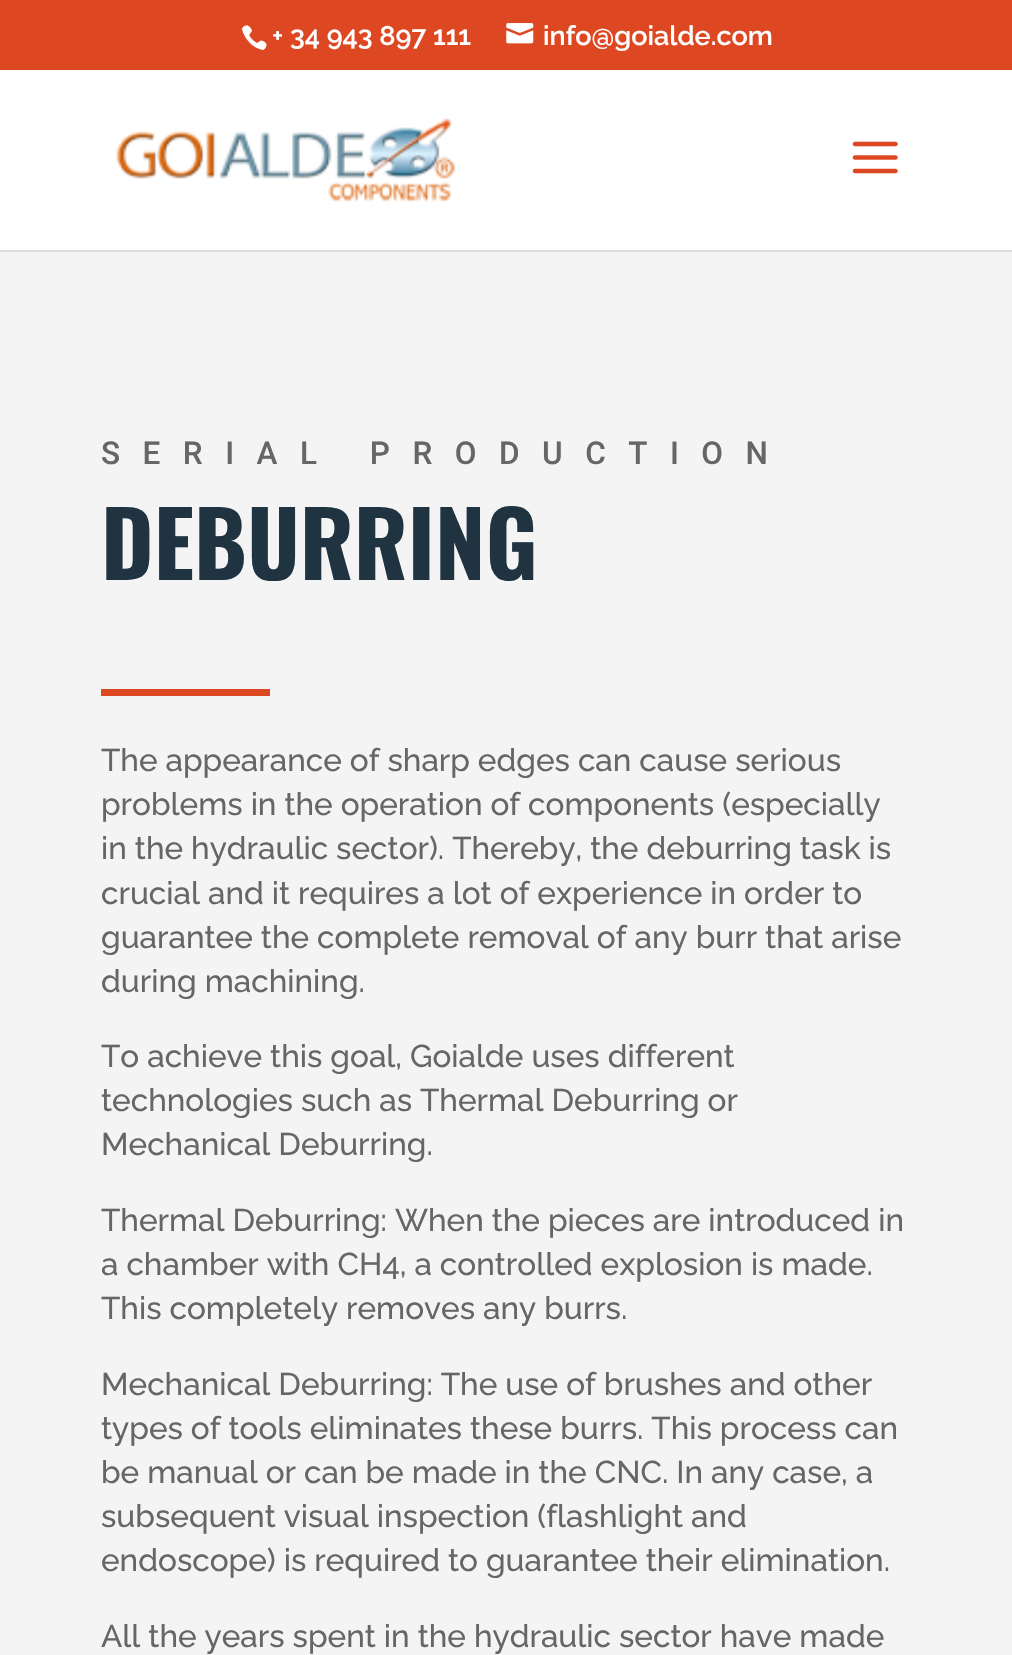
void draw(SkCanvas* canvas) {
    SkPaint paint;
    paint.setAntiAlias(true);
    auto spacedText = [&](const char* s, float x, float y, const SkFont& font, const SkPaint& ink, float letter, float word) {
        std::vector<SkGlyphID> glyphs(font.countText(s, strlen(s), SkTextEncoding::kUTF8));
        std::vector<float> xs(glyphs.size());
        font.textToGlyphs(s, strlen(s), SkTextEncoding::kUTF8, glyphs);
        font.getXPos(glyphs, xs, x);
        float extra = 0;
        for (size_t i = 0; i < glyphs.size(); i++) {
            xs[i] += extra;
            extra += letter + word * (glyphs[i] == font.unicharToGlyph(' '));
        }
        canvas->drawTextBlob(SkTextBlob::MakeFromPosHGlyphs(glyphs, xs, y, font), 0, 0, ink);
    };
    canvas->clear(0xFFF4F4F4);
    paint.setColor(0xFFDD4823);
    canvas->drawRect(SkRect::MakeXYWH(0, 0, 1012, 70), paint);
    canvas->drawImageRect(SkImages::DeferredFromEncodedData(SkData::MakeFromFileName("img1.png")), SkRect::MakeXYWH(241, 25, 26, 26), SkSamplingOptions());
    SkFont font1(fontMgr->matchFamilyStyle("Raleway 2", SkFontStyle(100, SkFontStyle::kNormal_Width, SkFontStyle::kUpright_Slant)), 27);
    font1.setSubpixel(true);
    paint.setColor(0xFFFFFFFF);
    canvas->drawString("+ 34 943 897 111", 272, 45, font1, paint);
    canvas->drawImageRect(SkImages::DeferredFromEncodedData(SkData::MakeFromFileName("img2.png")), SkRect::MakeXYWH(506, 23, 28, 21), SkSamplingOptions());
    canvas->drawString("info@goialde.com", 543, 45, font1, paint);
    paint.setColor(0xFFDCDCDC);
    canvas->drawPath(SkPathBuilder().moveTo(0, 250).lineTo(0, 252).lineTo(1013, 252).lineTo(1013, 72).lineTo(1012, 72).lineTo(1012, 250).close().detach(), paint);
    paint.setColor(0xFFFFFFFF);
    canvas->drawRect(SkRect::MakeXYWH(0, 70, 1012, 180), paint);
    canvas->drawImageRect(SkImages::DeferredFromEncodedData(SkData::MakeFromFileName("img3.png")), SkRect::MakeXYWH(116, 118, 340, 84), SkSamplingOptions());
    canvas->drawImageRect(SkImages::DeferredFromEncodedData(SkData::MakeFromFileName("img4.png")), SkRect::MakeXYWH(852, 141, 46, 33), SkSamplingOptions());
    SkFont font2(fontMgr->matchFamilyStyle("Roboto", SkFontStyle(500, SkFontStyle::kNormal_Width, SkFontStyle::kUpright_Slant)), 31.5f);
    font2.setSubpixel(true);
    paint.setColor(0xFF666666);
    spacedText("SERIAL PRODUCTION", 101, 464, font2, paint, 22.5f, 0);
    SkFont font3(fontMgr->matchFamilyStyle("Oswald", SkFontStyle::Bold()), 90);
    font3.setSubpixel(true);
    paint.setColor(0xFF1F3440);
    canvas->drawString("DEBURRING", 101, 580, font3, paint);
    paint.setColor(0xFFDD4823);
    canvas->drawRect(SkRect::MakeXYWH(101, 689, 169, 7), paint);
    SkFont font4(fontMgr->matchFamilyStyle("Raleway", SkFontStyle(100, SkFontStyle::kNormal_Width, SkFontStyle::kUpright_Slant)), 31.5f);
    font4.setSubpixel(true);
    paint.setColor(0xFF666666);
    canvas->drawString("The appearance of sharp edges can cause serious", 101, 771, font4, paint);
    canvas->drawString("problems in the operation of components (especially", 101, 815, font4, paint);
    canvas->drawString("in the hydraulic sector). Thereby, the deburring task is", 101, 859, font4, paint);
    canvas->drawString("crucial and it requires a lot of experience in order to", 101, 904, font4, paint);
    canvas->drawString("guarantee the complete removal of any burr that arise", 101, 948, font4, paint);
    canvas->drawString("during machining.", 101, 992, font4, paint);
    canvas->drawString("To achieve this goal, Goialde uses different", 101, 1067, font4, paint);
    canvas->drawString("technologies such as Thermal Deburring or", 101, 1111, font4, paint);
    canvas->drawString("Mechanical Deburring.", 101, 1155, font4, paint);
    canvas->drawString("Thermal Deburring: When the pieces are introduced in", 101, 1231, font4, paint);
    canvas->drawString("a chamber with CH4, a controlled explosion is made.", 101, 1275, font4, paint);
    canvas->drawString("This completely removes any burrs.", 101, 1319, font4, paint);
    canvas->drawString("Mechanical Deburring: The use of brushes and other", 101, 1395, font4, paint);
    canvas->drawString("types of tools eliminates these burrs. This process can", 101, 1439, font4, paint);
    canvas->drawString("be manual or can be made in the CNC. In any case, a", 101, 1483, font4, paint);
    canvas->drawString("subsequent visual inspection (flashlight and", 101, 1527, font4, paint);
    canvas->drawString("endoscope) is required to guarantee their elimination.", 101, 1571, font4, paint);
    canvas->drawString("All the years spent in the hydraulic sector have made", 101, 1647, font4, paint);
}
